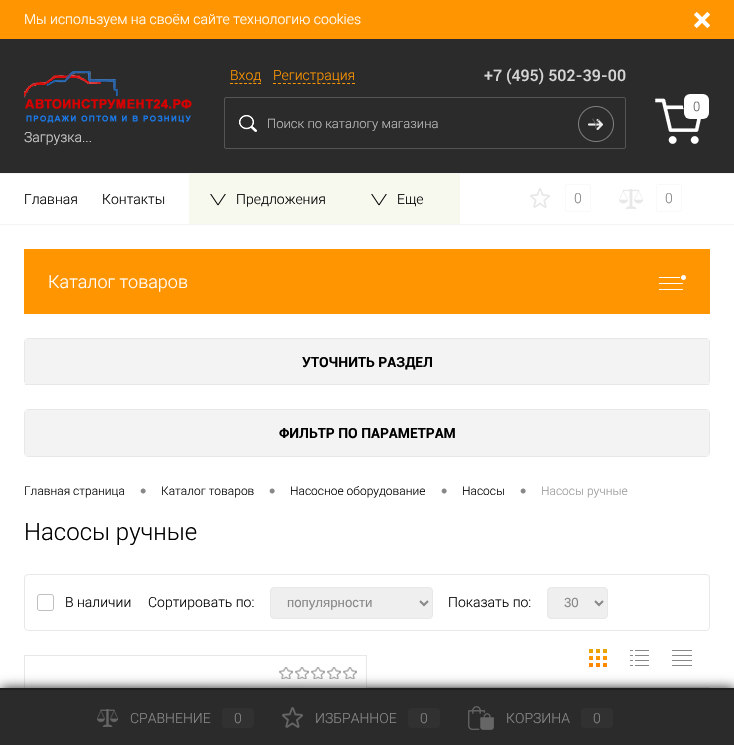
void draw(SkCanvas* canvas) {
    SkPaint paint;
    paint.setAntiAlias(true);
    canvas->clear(0xFFFFFFFF);
    paint.setColor(0xFFFF9601);
    canvas->drawRect(SkRect::MakeXYWH(0, 0, 734, 39), paint);
    SkFont font1(fontMgr->matchFamilyStyle("Roboto", SkFontStyle(300, SkFontStyle::kNormal_Width, SkFontStyle::kUpright_Slant)), 14);
    font1.setSubpixel(true);
    paint.setColor(0xFFFFFFFF);
    canvas->drawString("Мы используем на своём сайте технологию cookies", 24, 24, font1, paint);
    canvas->drawImageRect(SkImages::DeferredFromEncodedData(SkData::MakeFromFileName("img1.png")), SkRect::MakeXYWH(694, 12, 16, 16), SkSamplingOptions());
    paint.setColor(0xFF2B2B2B);
    canvas->drawRect(SkRect::MakeXYWH(0, 39, 734, 134), paint);
    paint.setColor(0xFFFF9601);
    canvas->drawString("Вход", 230, 80, font1, paint);
    paint.setStyle(SkPaint::kStroke_Style);
    paint.setStrokeWidth(1);
    paint.setPathEffect(SkDashPathEffect::Make({{3, 1.67f}}, 0));
    canvas->drawPath(SkPathBuilder().moveTo(230, 83.5f).lineTo(261, 83.5f).detach(), paint);
    paint.setPathEffect(nullptr);
    paint.setStyle(SkPaint::kFill_Style);
    canvas->drawString("Регистрация", 273, 80, font1, paint);
    paint.setStyle(SkPaint::kStroke_Style);
    paint.setPathEffect(SkDashPathEffect::Make({{3, 1.94f}}, 0));
    canvas->drawPath(SkPathBuilder().moveTo(273, 83.5f).lineTo(355, 83.5f).detach(), paint);
    paint.setPathEffect(nullptr);
    SkFont font2(fontMgr->matchFamilyStyle("Roboto", SkFontStyle(500, SkFontStyle::kNormal_Width, SkFontStyle::kUpright_Slant)), 16);
    font2.setSubpixel(true);
    paint.setStyle(SkPaint::kFill_Style);
    paint.setColor(0xFFD5D5D5);
    canvas->drawString("+7 (495) 502-39-00", 484, 81, font2, paint);
    paint.setStyle(SkPaint::kStroke_Style);
    paint.setColor(0xFF555555);
    canvas->drawRoundRect(SkRect::MakeXYWH(224.5f, 97.5f, 401, 51), 1.5f, 1.5f, paint);
    canvas->drawImageRect(SkImages::DeferredFromEncodedData(SkData::MakeFromFileName("img2.png")), SkRect::MakeXYWH(239, 115, 18, 17), SkSamplingOptions());
    SkFont font3(fontMgr->matchFamilyStyle("Roboto", SkFontStyle(300, SkFontStyle::kNormal_Width, SkFontStyle::kUpright_Slant)), 13);
    font3.setSubpixel(true);
    paint.setStyle(SkPaint::kFill_Style);
    paint.setColor(0xFFBFBFBF);
    canvas->drawString("Поиск по каталогу магазина", 267, 128, font3, paint);
    canvas->drawImageRect(SkImages::DeferredFromEncodedData(SkData::MakeFromFileName("img3.png")), SkRect::MakeXYWH(578, 106, 36, 36), SkSamplingOptions());
    paint.setColor(0xFF646464);
    canvas->drawString("Y", 592, 128, font3, paint);
    canvas->drawImageRect(SkImages::DeferredFromEncodedData(SkData::MakeFromFileName("img4.png")), SkRect::MakeXYWH(655, 98, 46, 46), SkSamplingOptions());
    paint.setColor(0xFFFFFFFF);
    canvas->drawRoundRect(SkRect::MakeXYWH(684, 94, 25, 25), 6, 6, paint);
    paint.setColor(0xFF646464);
    canvas->drawString("0", 693, 111, font3, paint);
    canvas->drawImageRect(SkImages::DeferredFromEncodedData(SkData::MakeFromFileName("img5.png")), SkRect::MakeXYWH(24, 71, 168, 52), SkSamplingOptions());
    paint.setColor(0xFFD5D5D5);
    canvas->drawString("Загрузка...", 24, 142, font1, paint);
    paint.setColor(0xFFF4F4F4);
    canvas->drawRect(SkRect::MakeXYWH(0, 173, 734, 1), paint);
    canvas->drawRect(SkRect::MakeXYWH(0, 224, 734, 1), paint);
    paint.setColor(0xFF000000);
    canvas->drawString("Главная", 24, 204, font1, paint);
    canvas->drawString("Контакты", 102, 204, font1, paint);
    paint.setColor(0xFFF7F9EF);
    canvas->drawRect(SkRect::MakeXYWH(189, 174, 271, 50), paint);
    canvas->drawImageRect(SkImages::DeferredFromEncodedData(SkData::MakeFromFileName("img6.png")), SkRect::MakeXYWH(210, 194, 16, 12), SkSamplingOptions());
    paint.setColor(0xFF000000);
    canvas->drawString("Предложения", 236, 204, font1, paint);
    canvas->drawImageRect(SkImages::DeferredFromEncodedData(SkData::MakeFromFileName("img6.png")), SkRect::MakeXYWH(371, 194, 16, 12), SkSamplingOptions());
    canvas->drawString("Еще", 397, 204, font1, paint);
    canvas->drawImageRect(SkImages::DeferredFromEncodedData(SkData::MakeFromFileName("img7.png")), SkRect::MakeXYWH(530, 188, 20, 20), SkSamplingOptions());
    paint.setStyle(SkPaint::kStroke_Style);
    paint.setColor(0xFFF9F9F9);
    canvas->drawRoundRect(SkRect::MakeXYWH(565.5f, 184.5f, 25, 27), 1.5f, 1.5f, paint);
    paint.setStyle(SkPaint::kFill_Style);
    paint.setColor(0xFF808080);
    canvas->drawString("0", 574, 203, font1, paint);
    canvas->drawImageRect(SkImages::DeferredFromEncodedData(SkData::MakeFromFileName("img8.png")), SkRect::MakeXYWH(619, 189, 24, 20), SkSamplingOptions());
    paint.setStyle(SkPaint::kStroke_Style);
    paint.setColor(0xFFF9F9F9);
    canvas->drawRoundRect(SkRect::MakeXYWH(656.5f, 184.5f, 25, 27), 1.5f, 1.5f, paint);
    paint.setStyle(SkPaint::kFill_Style);
    paint.setColor(0xFF808080);
    canvas->drawString("0", 665, 203, font1, paint);
    paint.setColor(0xFFFF9601);
    canvas->drawRect(SkRect::MakeXYWH(24, 249, 686, 65), paint);
    SkFont font4(fontMgr->matchFamilyStyle("Roboto", SkFontStyle(300, SkFontStyle::kNormal_Width, SkFontStyle::kUpright_Slant)), 18);
    font4.setSubpixel(true);
    paint.setColor(0xFFFFFFFF);
    canvas->drawString("Каталог товаров", 48, 288, font4, paint);
    canvas->drawImageRect(SkImages::DeferredFromEncodedData(SkData::MakeFromFileName("img9.png")), SkRect::MakeXYWH(659, 275, 27, 15), SkSamplingOptions());
    paint.setColor(0xFFE7E8EA);
    canvas->drawPath(SkPathBuilder(SkPathFillType::kEvenOdd).moveTo(28, 338).lineTo(706, 338).cubicTo(708, 338, 710, 340, 710, 342).lineTo(710, 381).cubicTo(710, 383, 708, 385, 706, 385).lineTo(28, 385).cubicTo(26, 385, 24, 383, 24, 381).lineTo(24, 342).cubicTo(24, 340, 26, 338, 28, 338).close().moveTo(28, 339).lineTo(706, 339).cubicTo(708, 339, 709, 340, 709, 342).lineTo(709, 381).cubicTo(709, 383, 708, 385, 706, 385).lineTo(28, 385).cubicTo(26, 385, 25, 383, 25, 381).lineTo(25, 342).cubicTo(25, 340, 26, 339, 28, 339).close().detach(), paint);
    paint.setColor(0xFFF3F3F3);
    canvas->drawRect(SkRect::MakeXYWH(25, 339, 684, 45), paint);
    paint.setColor(0xFFE7E8EA);
    canvas->drawRect(SkRect::MakeXYWH(25, 384, 684, 1), paint);
    SkFont font5(fontMgr->matchFamilyStyle("Roboto", SkFontStyle::Bold()), 14);
    font5.setSubpixel(true);
    paint.setColor(0xFF000000);
    canvas->drawString("УТОЧНИТЬ РАЗДЕЛ", 302, 367, font5, paint);
    paint.setStyle(SkPaint::kStroke_Style);
    paint.setColor(0xFFE7E8EA);
    canvas->drawRoundRect(SkRect::MakeXYWH(24.5f, 409.5f, 685, 47), 3.5f, 3.5f, paint);
    paint.setStyle(SkPaint::kFill_Style);
    paint.setColor(0xFFF3F3F3);
    canvas->drawRect(SkRect::MakeXYWH(25, 410, 684, 46), paint);
    paint.setColor(0xFF000000);
    canvas->drawString("ФИЛЬТР ПО ПАРАМЕТРАМ", 279, 438, font5, paint);
    SkFont font6(fontMgr->matchFamilyStyle("Roboto", SkFontStyle(300, SkFontStyle::kNormal_Width, SkFontStyle::kUpright_Slant)), 12);
    font6.setSubpixel(true);
    canvas->drawString("Главная страница", 24, 495, font6, paint);
    SkFont font7(fontMgr->matchFamilyStyle("Liberation Sans", SkFontStyle::Normal()), 18);
    font7.setSubpixel(true);
    paint.setColor(0xFF888888);
    canvas->drawString("•", 140, 497, font7, paint);
    paint.setColor(0xFF000000);
    canvas->drawString("Каталог товаров", 161, 495, font6, paint);
    paint.setColor(0xFF888888);
    canvas->drawString("•", 269, 497, font7, paint);
    paint.setColor(0xFF000000);
    canvas->drawString("Насосное оборудование", 290, 495, font6, paint);
    paint.setColor(0xFF888888);
    canvas->drawString("•", 441, 497, font7, paint);
    paint.setColor(0xFF000000);
    canvas->drawString("Насосы", 462, 495, font6, paint);
    paint.setColor(0xFF888888);
    canvas->drawString("•", 520, 497, font7, paint);
    paint.setColor(0xFF999999);
    canvas->drawString("Насосы ручные", 541, 495, font6, paint);
    SkFont font8(fontMgr->matchFamilyStyle("Roboto", SkFontStyle(300, SkFontStyle::kNormal_Width, SkFontStyle::kUpright_Slant)), 24);
    font8.setSubpixel(true);
    paint.setColor(0xFF000000);
    canvas->drawString("Насосы ручные", 24, 540, font8, paint);
    paint.setStyle(SkPaint::kStroke_Style);
    paint.setColor(0xFFE7E8EA);
    canvas->drawRoundRect(SkRect::MakeXYWH(24.5f, 574.5f, 685, 56), 3.5f, 3.5f, paint);
    canvas->drawImageRect(SkImages::DeferredFromEncodedData(SkData::MakeFromFileName("img10.png")), SkRect::MakeXYWH(37, 594, 17, 17), SkSamplingOptions());
    paint.setStyle(SkPaint::kFill_Style);
    paint.setColor(0xFF000000);
    canvas->drawString("В наличии", 65, 607, font1, paint);
    canvas->drawString("Сортировать по:", 148, 607, font1, paint);
    paint.setColor(0xFFEFEFEF);
    canvas->drawRoundRect(SkRect::MakeXYWH(270.5f, 587.5f, 162, 31), 3.5f, 3.5f, paint);
    paint.setStyle(SkPaint::kStroke_Style);
    paint.setColor(0xFFE7E8EA);
    canvas->drawRoundRect(SkRect::MakeXYWH(270.5f, 587.5f, 162, 31), 3.5f, 3.5f, paint);
    paint.setStrokeWidth(2);
    paint.setColor(0xFF888888);
    canvas->drawPath(SkPathBuilder().moveTo(420, 601).lineTo(424, 605).lineTo(428, 601).detach(), paint);
    SkFont font9(fontMgr->matchFamilyStyle("Liberation Sans", SkFontStyle::Normal()), 13.25f);
    font9.setSubpixel(true);
    paint.setStyle(SkPaint::kFill_Style);
    canvas->drawString("популярности", 287, 607, font9, paint);
    paint.setColor(0xFF000000);
    canvas->drawString("Показать по:", 448, 607, font1, paint);
    paint.setColor(0xFFEFEFEF);
    canvas->drawRoundRect(SkRect::MakeXYWH(547.5f, 587.5f, 60, 31), 3.5f, 3.5f, paint);
    paint.setStyle(SkPaint::kStroke_Style);
    paint.setStrokeWidth(1);
    paint.setColor(0xFFE7E8EA);
    canvas->drawRoundRect(SkRect::MakeXYWH(547.5f, 587.5f, 60, 31), 3.5f, 3.5f, paint);
    paint.setStrokeWidth(2);
    paint.setColor(0xFF888888);
    canvas->drawPath(SkPathBuilder().moveTo(595, 601).lineTo(599, 605).lineTo(603, 601).detach(), paint);
    paint.setStyle(SkPaint::kFill_Style);
    canvas->drawString("30", 564, 607, font9, paint);
    canvas->drawImageRect(SkImages::DeferredFromEncodedData(SkData::MakeFromFileName("img11.png")), SkRect::MakeXYWH(589, 649, 18, 18), SkSamplingOptions());
    canvas->drawImageRect(SkImages::DeferredFromEncodedData(SkData::MakeFromFileName("img12.png")), SkRect::MakeXYWH(630, 650, 19, 16), SkSamplingOptions());
    canvas->drawImageRect(SkImages::DeferredFromEncodedData(SkData::MakeFromFileName("img13.png")), SkRect::MakeXYWH(672, 650, 20, 16), SkSamplingOptions());
    paint.setStyle(SkPaint::kStroke_Style);
    paint.setStrokeWidth(1);
    paint.setColor(0xFFE7E8EA);
    canvas->drawRect(SkRect::MakeXYWH(24.5f, 655.5f, 342, 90), paint);
    canvas->drawImageRect(SkImages::DeferredFromEncodedData(SkData::MakeFromFileName("img14.png")), SkRect::MakeXYWH(279, 667, 78, 12), SkSamplingOptions());
    canvas->drawImageRect(SkImages::DeferredFromEncodedData(SkData::MakeFromFileName("img15.png")), SkRect::MakeXYWH(88, 685, 216, 3), SkSamplingOptions());
    paint.setStyle(SkPaint::kFill_Style);
    canvas->drawRect(SkRect::MakeXYWH(367, 687, 343, 1), paint);
    paint.setColor(0xFF000000);
    paint.setMaskFilter(SkMaskFilter::MakeBlur(kNormal_SkBlurStyle, 6));
    canvas->drawRect(SkRect::MakeXYWH(1, 689, 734, 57), paint);
    paint.setMaskFilter(nullptr);
    paint.setColor(0xFF2B2B2B);
    canvas->drawRect(SkRect::MakeXYWH(0, 690, 734, 55), paint);
    paint.setColor(0xFF202020);
    canvas->drawRect(SkRect::MakeXYWH(0, 688, 734, 2), paint);
    canvas->drawImageRect(SkImages::DeferredFromEncodedData(SkData::MakeFromFileName("img16.png")), SkRect::MakeXYWH(97, 709, 21, 18), SkSamplingOptions());
    paint.setColor(0xFF888888);
    canvas->drawString("СРАВНЕНИЕ", 130, 723, font1, paint);
    paint.setColor(0xFF313131);
    canvas->drawRoundRect(SkRect::MakeXYWH(222, 708, 32, 20), 4, 4, paint);
    paint.setColor(0xFF888888);
    canvas->drawString("0", 234, 723, font1, paint);
    canvas->drawImageRect(SkImages::DeferredFromEncodedData(SkData::MakeFromFileName("img17.png")), SkRect::MakeXYWH(282, 707, 21, 21), SkSamplingOptions());
    canvas->drawString("ИЗБРАННОЕ", 315, 723, font1, paint);
    paint.setColor(0xFF313131);
    canvas->drawRoundRect(SkRect::MakeXYWH(408, 708, 32, 20), 4, 4, paint);
    paint.setColor(0xFF888888);
    canvas->drawString("0", 420, 723, font1, paint);
    canvas->drawImageRect(SkImages::DeferredFromEncodedData(SkData::MakeFromFileName("img18.png")), SkRect::MakeXYWH(468, 706, 26, 24), SkSamplingOptions());
    canvas->drawString("КОРЗИНА", 506, 723, font1, paint);
    paint.setColor(0xFF313131);
    canvas->drawRoundRect(SkRect::MakeXYWH(581, 708, 32, 20), 4, 4, paint);
    paint.setColor(0xFF888888);
    canvas->drawString("0", 593, 723, font1, paint);
}
